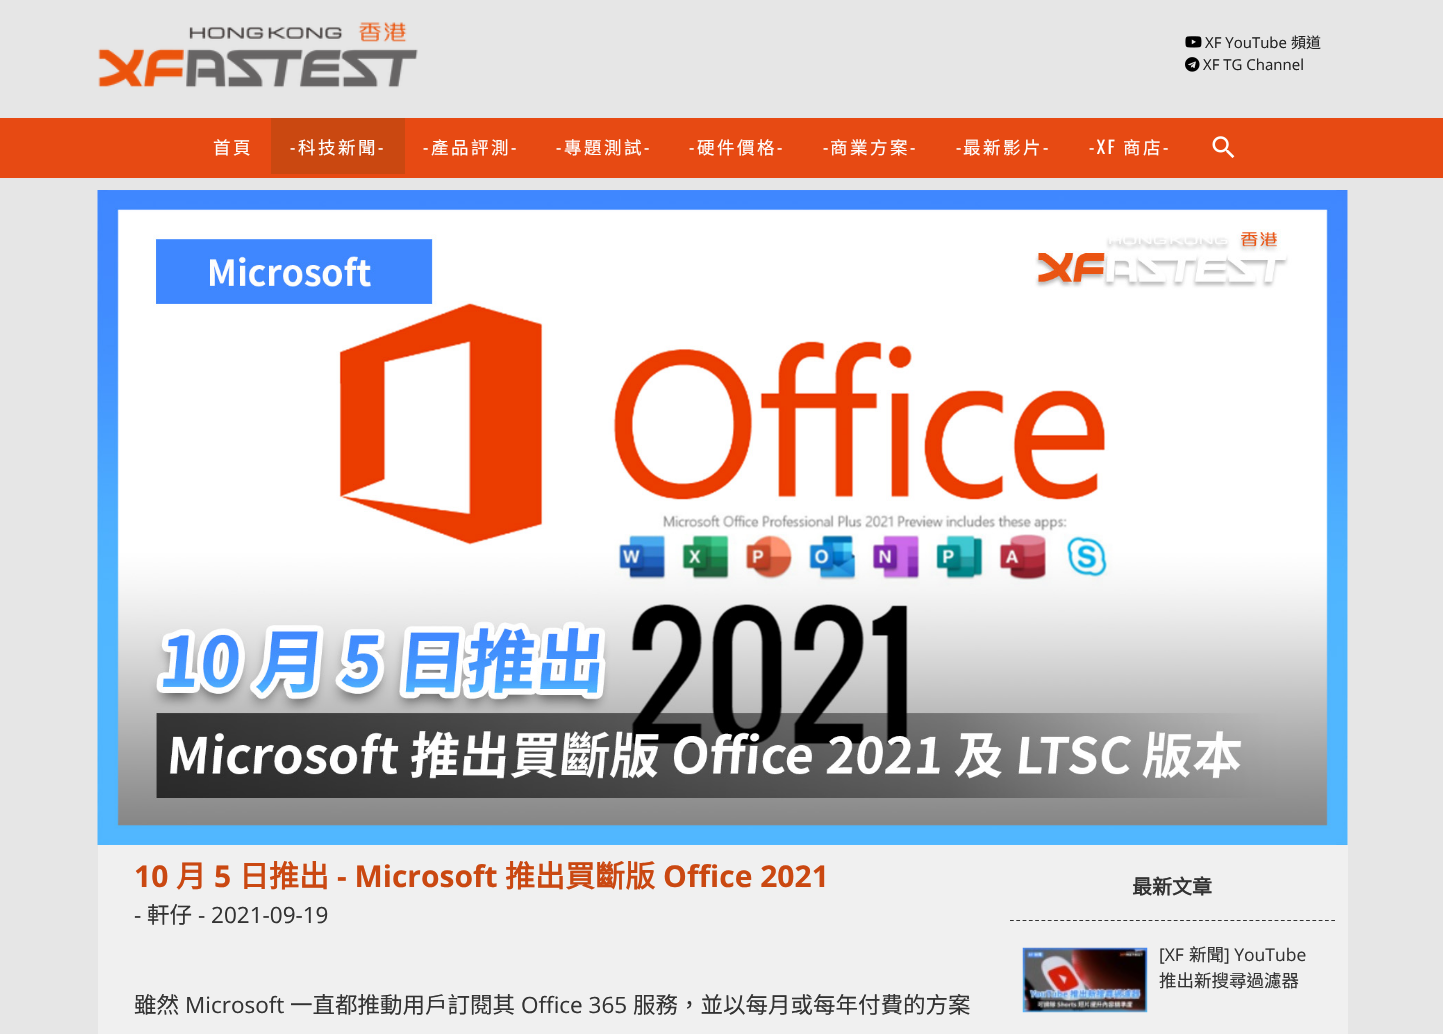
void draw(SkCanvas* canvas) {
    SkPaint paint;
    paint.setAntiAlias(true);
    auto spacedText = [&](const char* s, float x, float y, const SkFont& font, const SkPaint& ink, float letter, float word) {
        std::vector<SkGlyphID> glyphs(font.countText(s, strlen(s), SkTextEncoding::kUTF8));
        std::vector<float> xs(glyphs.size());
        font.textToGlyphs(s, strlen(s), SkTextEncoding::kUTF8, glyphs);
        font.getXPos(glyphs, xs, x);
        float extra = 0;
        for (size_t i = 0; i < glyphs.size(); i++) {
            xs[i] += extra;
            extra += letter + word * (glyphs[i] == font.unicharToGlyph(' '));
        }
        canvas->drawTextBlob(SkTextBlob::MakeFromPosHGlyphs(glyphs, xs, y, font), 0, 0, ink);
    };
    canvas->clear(0xFFE6E6E6);
    canvas->drawImageRect(SkImages::DeferredFromEncodedData(SkData::MakeFromFileName("img1.png")), SkRect::MakeXYWH(98, 22, 320, 66), SkSamplingOptions());
    canvas->drawImageRect(SkImages::DeferredFromEncodedData(SkData::MakeFromFileName("img2.png")), SkRect::MakeXYWH(1185, 36, 17, 12), SkSamplingOptions());
    SkFont font1(fontMgr->matchFamilyStyle("Open Sans", SkFontStyle::Normal()), 15);
    font1.setSubpixel(true);
    paint.setColor(0xFF222222);
    canvas->drawString("XF YouTube", 1205, 48, font1, paint);
    SkFont font2(fontMgr->matchFamilyStyle("Noto Sans CJK HK", SkFontStyle::Normal()), 15);
    font2.setSubpixel(true);
    canvas->drawString("頻道", 1291, 48, font2, paint);
    canvas->drawImageRect(SkImages::DeferredFromEncodedData(SkData::MakeFromFileName("img3.png")), SkRect::MakeXYWH(1185, 57, 15, 15), SkSamplingOptions());
    canvas->drawString("XF TG Channel", 1203, 70, font1, paint);
    paint.setColor(0xFFE74A13);
    canvas->drawRect(SkRect::MakeXYWH(0, 118, 1443, 60), paint);
    SkFont font3(fontMgr->matchFamilyStyle("Noto Sans CJK HK", SkFontStyle::Normal()), 17.5f);
    font3.setSubpixel(true);
    paint.setColor(0xFFFFFFFF);
    spacedText("首頁", 213, 154, font3, paint, 2.5f, 0);
    paint.setColor(0xFFCA4811);
    canvas->drawRect(SkRect::MakeXYWH(271, 118, 134, 56), paint);
    SkFont font4(fontMgr->matchFamilyStyle("Oswald", SkFontStyle::Normal()), 17.5f);
    font4.setSubpixel(true);
    paint.setColor(0xFFFFFFFF);
    spacedText("-", 290, 154, font4, paint, 2.5f, 0);
    spacedText("科技新聞", 298, 154, font3, paint, 2.5f, 0);
    spacedText("-", 378, 154, font4, paint, 2.5f, 0);
    spacedText("-", 423, 154, font4, paint, 2.5f, 0);
    spacedText("產品評測", 431, 154, font3, paint, 2.5f, 0);
    spacedText("-", 511, 154, font4, paint, 2.5f, 0);
    spacedText("-", 556, 154, font4, paint, 2.5f, 0);
    spacedText("專題測試", 564, 154, font3, paint, 2.5f, 0);
    spacedText("-", 644, 154, font4, paint, 2.5f, 0);
    spacedText("-", 689, 154, font4, paint, 2.5f, 0);
    spacedText("硬件價格", 697, 154, font3, paint, 2.5f, 0);
    spacedText("-", 777, 154, font4, paint, 2.5f, 0);
    spacedText("-", 823, 154, font4, paint, 2.5f, 0);
    spacedText("商業方案", 830, 154, font3, paint, 2.5f, 0);
    spacedText("-", 910, 154, font4, paint, 2.5f, 0);
    spacedText("-", 956, 154, font4, paint, 2.5f, 0);
    spacedText("最新影片", 963, 154, font3, paint, 2.5f, 0);
    spacedText("-", 1043, 154, font4, paint, 2.5f, 0);
    spacedText("-XF", 1089, 154, font4, paint, 2.5f, 0);
    spacedText("商店", 1123, 154, font3, paint, 2.5f, 0);
    spacedText("-", 1163, 154, font4, paint, 2.5f, 0);
    canvas->drawImageRect(SkImages::DeferredFromEncodedData(SkData::MakeFromFileName("img4.png")), SkRect::MakeXYWH(1212, 136, 23, 22), SkSamplingOptions());
    paint.setColor(0xFFF0F0F0);
    canvas->drawRect(SkRect::MakeXYWH(98, 190, 1250, 844), paint);
    canvas->drawImageRect(SkImages::DeferredFromEncodedData(SkData::MakeFromFileName("img5.png")), SkRect::MakeXYWH(97, 190, 1251, 655), SkSamplingOptions());
    SkFont font5(fontMgr->matchFamilyStyle("Open Sans", SkFontStyle::Bold()), 30);
    font5.setSubpixel(true);
    paint.setColor(0xFFCA4811);
    canvas->drawString("10", 134, 887, font5, paint);
    SkFont font6(fontMgr->matchFamilyStyle("Noto Sans CJK HK", SkFontStyle::Bold()), 30);
    font6.setSubpixel(true);
    canvas->drawString("月", 176, 887, font6, paint);
    canvas->drawString("5", 214, 887, font5, paint);
    canvas->drawString("日推出", 239, 887, font6, paint);
    canvas->drawString("- Microsoft", 337, 887, font5, paint);
    canvas->drawString("推出買斷版", 505, 887, font6, paint);
    canvas->drawString("Office 2021", 663, 887, font5, paint);
    SkFont font7(fontMgr->matchFamilyStyle("Open Sans", SkFontStyle::Normal()), 22.5f);
    font7.setSubpixel(true);
    paint.setColor(0xFF333333);
    canvas->drawString("-", 134, 923, font7, paint);
    SkFont font8(fontMgr->matchFamilyStyle("Noto Sans CJK HK", SkFontStyle::Normal()), 22.5f);
    font8.setSubpixel(true);
    canvas->drawString("軒仔", 147, 923, font8, paint);
    canvas->drawString("- 2021-09-19", 198, 923, font7, paint);
    canvas->drawString("雖然", 134, 1013, font8, paint);
    canvas->drawString("Microsoft", 185, 1013, font7, paint);
    canvas->drawString("一直都推動用戶訂閱其", 290, 1013, font8, paint);
    canvas->drawString("Office 365", 521, 1013, font7, paint);
    canvas->drawString("服務，並以每月或每年付費的方案", 633, 1013, font8, paint);
    paint.setStyle(SkPaint::kStroke_Style);
    paint.setStrokeWidth(1.2f);
    paint.setPathEffect(SkDashPathEffect::Make({{3.75f, 2.55f}}, 0));
    canvas->drawPath(SkPathBuilder().moveTo(1010, 920.5f).lineTo(1335, 920.5f).detach(), paint);
    paint.setPathEffect(nullptr);
    SkFont font9(fontMgr->matchFamilyStyle("Noto Sans CJK HK", SkFontStyle::Bold()), 20);
    font9.setSubpixel(true);
    paint.setStyle(SkPaint::kFill_Style);
    canvas->drawString("最新文章", 1132, 894, font9, paint);
    canvas->drawImageRect(SkImages::DeferredFromEncodedData(SkData::MakeFromFileName("img6.png")), SkRect::MakeXYWH(1022, 947, 126, 66), SkSamplingOptions());
    SkFont font10(fontMgr->matchFamilyStyle("Open Sans", SkFontStyle::Normal()), 17.5f);
    font10.setSubpixel(true);
    canvas->drawString("[XF", 1159, 961, font10, paint);
    canvas->drawString("新聞", 1189, 961, font3, paint);
    canvas->drawString("] YouTube", 1224, 961, font10, paint);
    canvas->drawString("推出新搜尋過濾器", 1159, 987, font3, paint);
}
